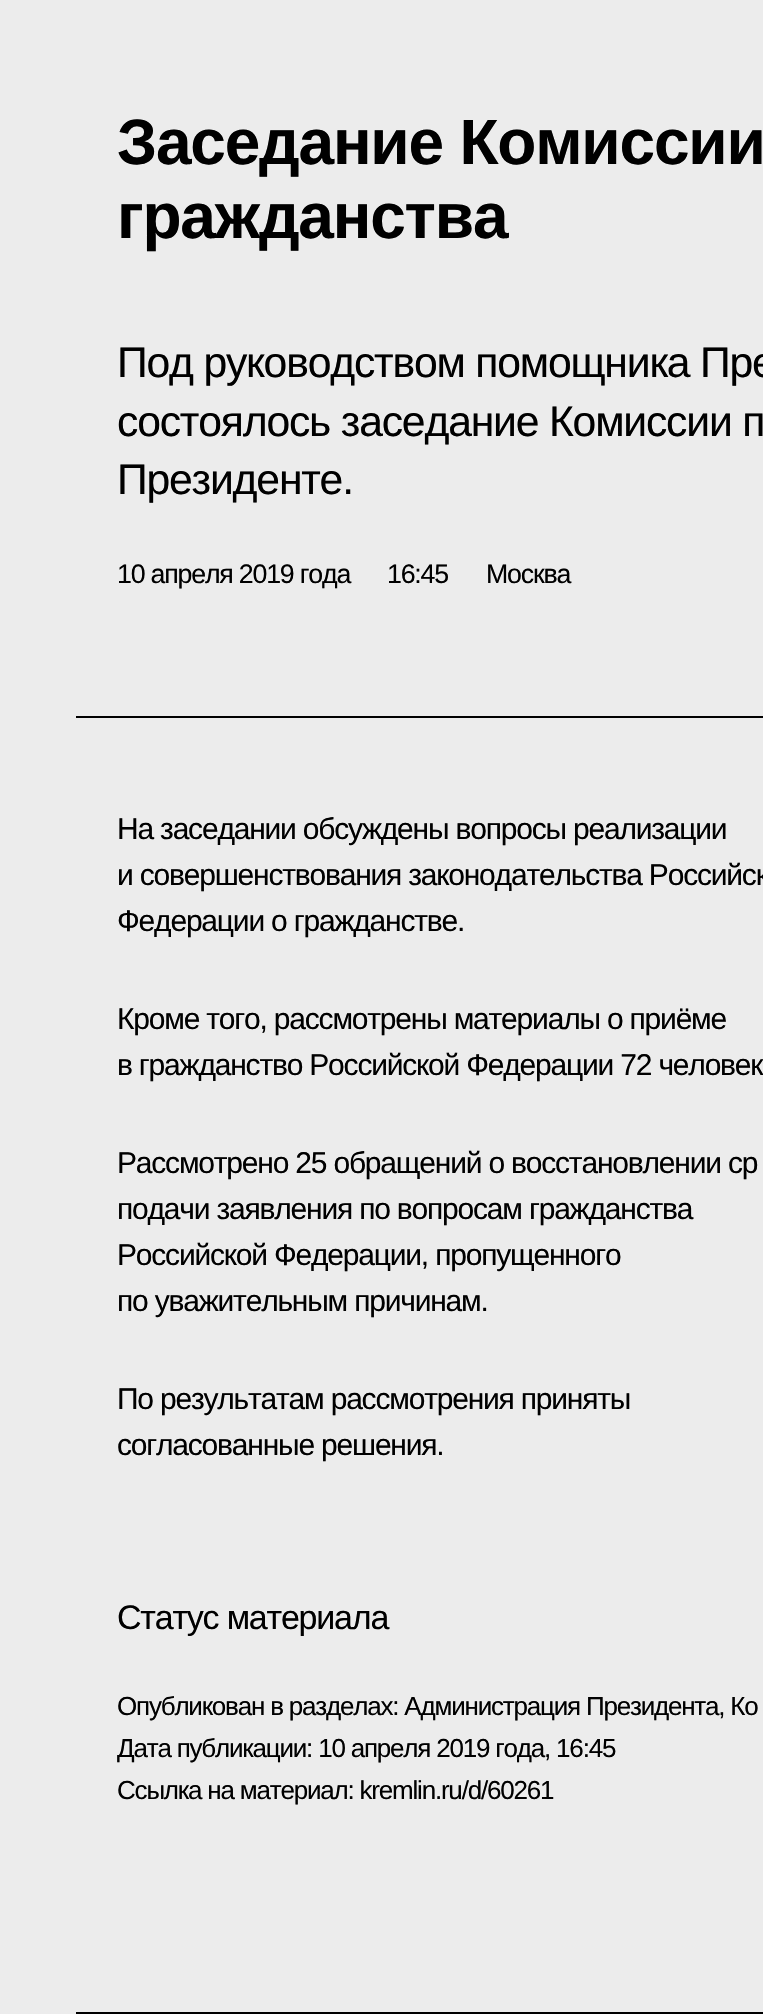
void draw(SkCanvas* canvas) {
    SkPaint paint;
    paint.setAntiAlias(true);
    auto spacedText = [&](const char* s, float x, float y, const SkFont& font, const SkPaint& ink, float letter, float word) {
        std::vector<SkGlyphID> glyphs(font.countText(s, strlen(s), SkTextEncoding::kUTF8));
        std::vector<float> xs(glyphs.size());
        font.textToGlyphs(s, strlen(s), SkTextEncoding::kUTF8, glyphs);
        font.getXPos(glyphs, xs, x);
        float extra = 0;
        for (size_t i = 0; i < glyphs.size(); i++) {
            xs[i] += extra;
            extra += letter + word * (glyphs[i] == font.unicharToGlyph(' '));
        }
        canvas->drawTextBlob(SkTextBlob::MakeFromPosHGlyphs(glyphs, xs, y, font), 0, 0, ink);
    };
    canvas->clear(0xFFECECEC);
    paint.setColor(0xFF000000);
    canvas->drawRect(SkRect::MakeXYWH(76, 2012, 687, 2), paint);
    canvas->drawRect(SkRect::MakeXYWH(76, 716, 687, 2), paint);
    SkFont font1(fontMgr->matchFamilyStyle("Liberation Sans", SkFontStyle::Bold()), 64);
    font1.setSubpixel(true);
    spacedText("Заседание Комиссии", 117, 164, font1, paint, -1.2f, 0);
    spacedText("гражданства", 117, 238, font1, paint, -1.2f, 0);
    SkFont font2(fontMgr->matchFamilyStyle("Liberation Sans", SkFontStyle::Normal()), 42.7f);
    font2.setSubpixel(true);
    spacedText("Под руководством помощника Пре", 117, 377, font2, paint, -1.2f, 0);
    spacedText("состоялось заседание Комиссии п", 117, 436, font2, paint, -1.2f, 0);
    spacedText("Президенте.", 117, 494, font2, paint, -1.2f, 0);
    SkFont font3(fontMgr->matchFamilyStyle("Liberation Sans", SkFontStyle::Normal()), 26.75f);
    font3.setSubpixel(true);
    spacedText("10 апреля 2019 года", 117, 583, font3, paint, -1.2f, 0);
    spacedText("16:45", 387, 583, font3, paint, -1.2f, 0);
    spacedText("Москва", 486, 583, font3, paint, -1.2f, 0);
    SkFont font4(fontMgr->matchFamilyStyle("Liberation Sans", SkFontStyle::Normal()), 30);
    font4.setSubpixel(true);
    spacedText("На заседании обсуждены вопросы реализации", 117, 839, font4, paint, -1.2f, 0);
    spacedText("и совершенствования законодательства Российск", 117, 885, font4, paint, -1.2f, 0);
    spacedText("Федерации о гражданстве.", 117, 931, font4, paint, -1.2f, 0);
    spacedText("Кроме того, рассмотрены материалы о приёме", 117, 1029, font4, paint, -1.2f, 0);
    spacedText("в гражданство Российской Федерации 72 человек", 117, 1075, font4, paint, -1.2f, 0);
    spacedText("Рассмотрено 25 обращений о восстановлении ср", 117, 1173, font4, paint, -1.2f, 0);
    spacedText("подачи заявления по вопросам гражданства", 117, 1219, font4, paint, -1.2f, 0);
    spacedText("Российской Федерации, пропущенного", 117, 1265, font4, paint, -1.2f, 0);
    spacedText("по уважительным причинам.", 117, 1311, font4, paint, -1.2f, 0);
    spacedText("По результатам рассмотрения приняты", 117, 1409, font4, paint, -1.2f, 0);
    spacedText("согласованные решения.", 117, 1455, font4, paint, -1.2f, 0);
    SkFont font5(fontMgr->matchFamilyStyle("Liberation Sans", SkFontStyle::Normal()), 34);
    font5.setSubpixel(true);
    spacedText("Статус материала", 117, 1629, font5, paint, -1.2f, 0);
    SkFont font6(fontMgr->matchFamilyStyle("Liberation Sans", SkFontStyle::Normal()), 26);
    font6.setSubpixel(true);
    spacedText("Опубликован в разделах: Администрация Президента, Ко", 117, 1715, font6, paint, -1.2f, 0);
    spacedText("Дата публикации: 10 апреля 2019 года, 16:45", 117, 1757, font6, paint, -1.2f, 0);
    spacedText("Ссылка на материал: kremlin.ru/d/60261", 117, 1799, font6, paint, -1.2f, 0);
}
